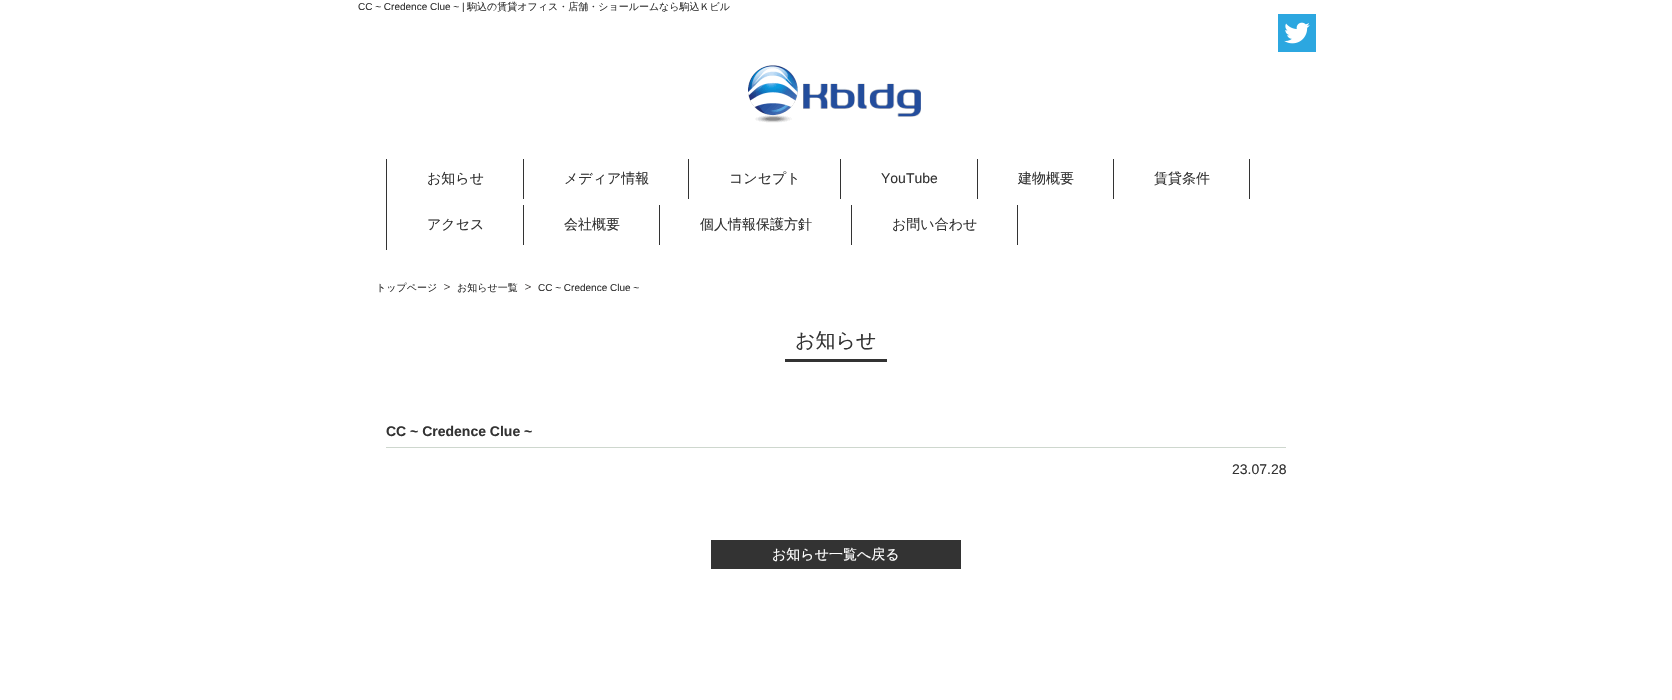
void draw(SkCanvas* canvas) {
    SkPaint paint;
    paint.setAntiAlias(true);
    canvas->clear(0xFFFFFFFF);
    SkFont font1(fontMgr->matchFamilyStyle("Liberation Sans", SkFontStyle::Normal()), 10);
    font1.setSubpixel(true);
    paint.setColor(0xFF333333);
    canvas->drawString("CC ~ Credence Clue ~ |", 358, 10, font1, paint);
    SkFont font2(fontMgr->matchFamilyStyle("WenQuanYi Zen Hei", SkFontStyle(500, SkFontStyle::kNormal_Width, SkFontStyle::kUpright_Slant)), 10);
    font2.setSubpixel(true);
    canvas->drawString("駒込の賃貸オフィス・店舗・ショールームなら駒込Ｋビル", 467, 10, font2, paint);
    canvas->drawImageRect(SkImages::DeferredFromEncodedData(SkData::MakeFromFileName("img1.png")), SkRect::MakeXYWH(1278, 14, 38, 38), SkSamplingOptions());
    canvas->drawImageRect(SkImages::DeferredFromEncodedData(SkData::MakeFromFileName("img2.png")), SkRect::MakeXYWH(748, 65, 173, 58), SkSamplingOptions());
    canvas->drawRect(SkRect::MakeXYWH(386, 159, 1, 91), paint);
    canvas->drawRect(SkRect::MakeXYWH(523, 159, 1, 40), paint);
    SkFont font3(fontMgr->matchFamilyStyle("WenQuanYi Zen Hei", SkFontStyle(500, SkFontStyle::kNormal_Width, SkFontStyle::kUpright_Slant)), 14);
    font3.setSubpixel(true);
    canvas->drawString("お知らせ", 427, 183, font3, paint);
    canvas->drawRect(SkRect::MakeXYWH(688, 159, 1, 40), paint);
    canvas->drawString("メディア情報", 564, 183, font3, paint);
    canvas->drawRect(SkRect::MakeXYWH(840, 159, 1, 40), paint);
    canvas->drawString("コンセプト", 729, 183, font3, paint);
    canvas->drawRect(SkRect::MakeXYWH(977, 159, 1, 40), paint);
    SkFont font4(fontMgr->matchFamilyStyle("Liberation Sans", SkFontStyle::Normal()), 14);
    font4.setSubpixel(true);
    canvas->drawString("YouTube", 881, 183, font4, paint);
    canvas->drawRect(SkRect::MakeXYWH(1113, 159, 1, 40), paint);
    canvas->drawString("建物概要", 1018, 183, font3, paint);
    canvas->drawRect(SkRect::MakeXYWH(1249, 159, 1, 40), paint);
    canvas->drawString("賃貸条件", 1154, 183, font3, paint);
    canvas->drawRect(SkRect::MakeXYWH(523, 205, 1, 40), paint);
    canvas->drawString("アクセス", 427, 229, font3, paint);
    canvas->drawRect(SkRect::MakeXYWH(659, 205, 1, 40), paint);
    canvas->drawString("会社概要", 564, 229, font3, paint);
    canvas->drawRect(SkRect::MakeXYWH(851, 205, 1, 40), paint);
    canvas->drawString("個人情報保護方針", 700, 229, font3, paint);
    canvas->drawRect(SkRect::MakeXYWH(1017, 205, 1, 40), paint);
    canvas->drawString("お問い合わせ", 892, 229, font3, paint);
    canvas->drawString("トップページ", 376, 291, font2, paint);
    canvas->drawImageRect(SkImages::DeferredFromEncodedData(SkData::MakeFromFileName("img3.png")), SkRect::MakeXYWH(444, 284, 6, 6), SkSamplingOptions());
    canvas->drawString("お知らせ一覧", 457, 291, font2, paint);
    canvas->drawImageRect(SkImages::DeferredFromEncodedData(SkData::MakeFromFileName("img3.png")), SkRect::MakeXYWH(525, 284, 6, 6), SkSamplingOptions());
    canvas->drawString("CC ~ Credence Clue ~", 538, 291, font1, paint);
    canvas->drawRect(SkRect::MakeXYWH(785, 359, 102, 3), paint);
    SkFont font5(fontMgr->matchFamilyStyle("WenQuanYi Zen Hei", SkFontStyle(500, SkFontStyle::kNormal_Width, SkFontStyle::kUpright_Slant)), 20);
    font5.setSubpixel(true);
    canvas->drawString("お知らせ", 795, 347, font5, paint);
    paint.setColor(0xFFCED7CE);
    canvas->drawRect(SkRect::MakeXYWH(386, 447, 900, 1), paint);
    SkFont font6(fontMgr->matchFamilyStyle("Liberation Sans", SkFontStyle::Bold()), 14);
    font6.setSubpixel(true);
    paint.setColor(0xFF333333);
    canvas->drawString("CC ~ Credence Clue ~", 386, 436, font6, paint);
    canvas->drawString("23.07.28", 1232, 474, font4, paint);
    canvas->drawRect(SkRect::MakeXYWH(711, 540, 250, 29), paint);
    paint.setColor(0xFFFFFFFF);
    canvas->drawString("お知らせ一覧へ戻る", 772, 559, font3, paint);
}
